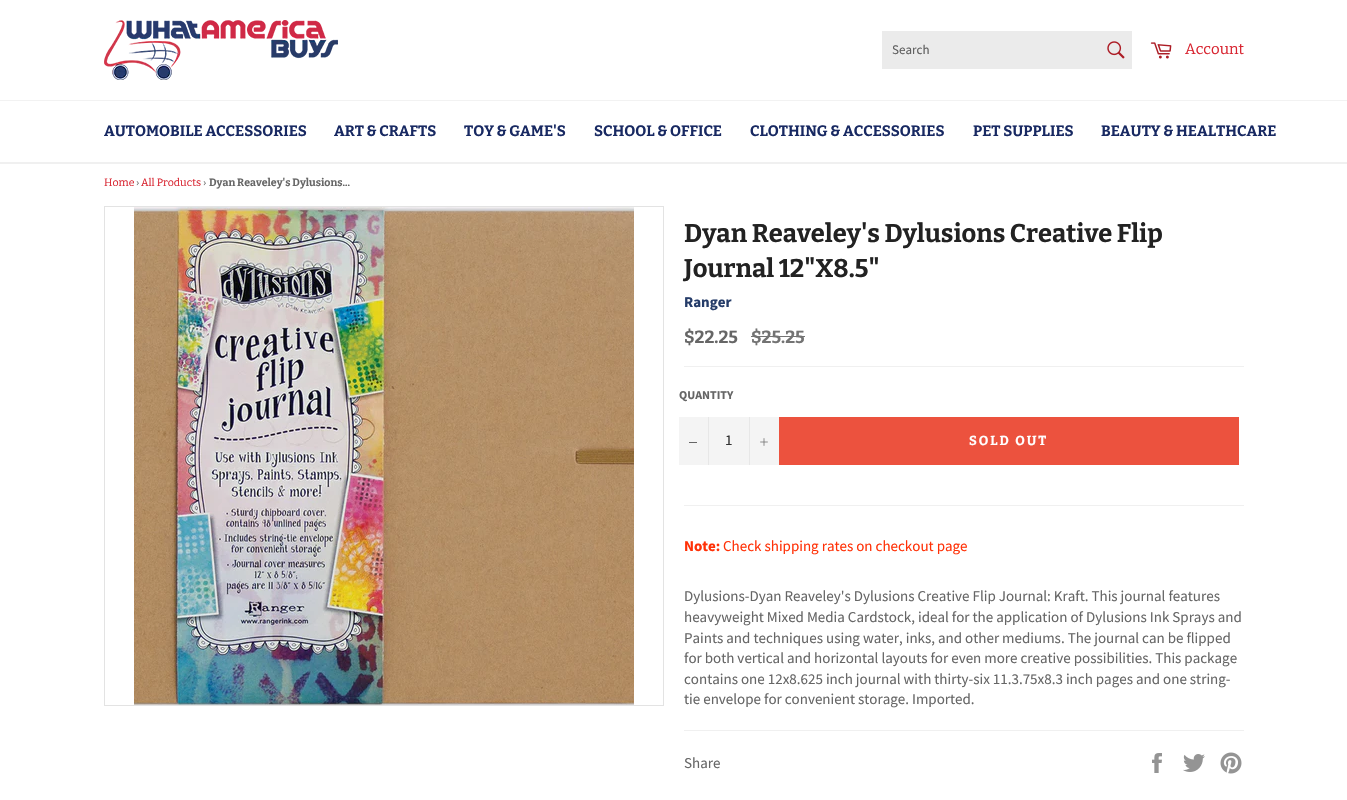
void draw(SkCanvas* canvas) {
    SkPaint paint;
    paint.setAntiAlias(true);
    auto spacedText = [&](const char* s, float x, float y, const SkFont& font, const SkPaint& ink, float letter, float word) {
        std::vector<SkGlyphID> glyphs(font.countText(s, strlen(s), SkTextEncoding::kUTF8));
        std::vector<float> xs(glyphs.size());
        font.textToGlyphs(s, strlen(s), SkTextEncoding::kUTF8, glyphs);
        font.getXPos(glyphs, xs, x);
        float extra = 0;
        for (size_t i = 0; i < glyphs.size(); i++) {
            xs[i] += extra;
            extra += letter + word * (glyphs[i] == font.unicharToGlyph(' '));
        }
        canvas->drawTextBlob(SkTextBlob::MakeFromPosHGlyphs(glyphs, xs, y, font), 0, 0, ink);
    };
    canvas->clear(0xFFFFFFFF);
    canvas->drawImageRect(SkImages::DeferredFromEncodedData(SkData::MakeFromFileName("img1.png")), SkRect::MakeXYWH(104, 20, 234, 60), SkSamplingOptions());
    paint.setColor(0xFFEBEBEB);
    canvas->drawRect(SkRect::MakeXYWH(882, 31, 250, 38), paint);
    SkFont font1(fontMgr->matchFamilyStyle("Source Sans Pro", SkFontStyle::Normal()), 13);
    font1.setSubpixel(true);
    paint.setColor(0xFF5E5E5E);
    canvas->drawString("Search", 892, 54, font1, paint);
    canvas->drawImageRect(SkImages::DeferredFromEncodedData(SkData::MakeFromFileName("img2.png")), SkRect::MakeXYWH(1107, 41, 18, 18), SkSamplingOptions());
    canvas->drawImageRect(SkImages::DeferredFromEncodedData(SkData::MakeFromFileName("img3.png")), SkRect::MakeXYWH(1150, 42, 22, 17), SkSamplingOptions());
    SkFont font2(fontMgr->matchFamilyStyle("Bitter", SkFontStyle::Normal()), 15);
    font2.setSubpixel(true);
    paint.setColor(0xFFD8232F);
    canvas->drawString("Account", 1185, 54, font2, paint);
    paint.setColor(0xFFF2F2F2);
    canvas->drawRect(SkRect::MakeXYWH(0, 100, 1347, 1), paint);
    paint.setColor(0xFFF0F0F0);
    canvas->drawRect(SkRect::MakeXYWH(0, 162, 1347, 2), paint);
    SkFont font3(fontMgr->matchFamilyStyle("Bitter", SkFontStyle::Bold()), 15);
    font3.setSubpixel(true);
    paint.setColor(0xFF182962);
    canvas->drawString("AUTOMOBILE ACCESSORIES", 104, 136, font3, paint);
    canvas->drawString("ART & CRAFTS", 334, 136, font3, paint);
    canvas->drawString("TOY & GAME'S", 464, 136, font3, paint);
    canvas->drawString("SCHOOL & OFFICE", 594, 136, font3, paint);
    canvas->drawString("CLOTHING & ACCESSORIES", 750, 136, font3, paint);
    canvas->drawString("PET SUPPLIES", 973, 136, font3, paint);
    canvas->drawString("BEAUTY & HEALTHCARE", 1101, 136, font3, paint);
    SkFont font4(fontMgr->matchFamilyStyle("Bitter", SkFontStyle::Normal()), 10.6f);
    font4.setSubpixel(true);
    paint.setColor(0xFFD8232F);
    canvas->drawString("Home", 104, 186, font4, paint);
    paint.setColor(0xFF666666);
    canvas->drawString("›", 136, 186, font4, paint);
    paint.setColor(0xFFD8232F);
    canvas->drawString("All Products", 141, 186, font4, paint);
    paint.setColor(0xFF666666);
    canvas->drawString("›", 203, 186, font4, paint);
    SkFont font5(fontMgr->matchFamilyStyle("Bitter", SkFontStyle::Bold()), 10.6f);
    font5.setSubpixel(true);
    canvas->drawString("Dyan Reaveley's Dylusions...", 209, 186, font5, paint);
    paint.setStyle(SkPaint::kStroke_Style);
    paint.setStrokeWidth(1);
    paint.setColor(0xFFE3E3E3);
    canvas->drawRect(SkRect::MakeXYWH(104.5f, 206.5f, 559, 499), paint);
    canvas->drawImageRect(SkImages::DeferredFromEncodedData(SkData::MakeFromFileName("img4.png")), SkRect::MakeXYWH(134, 207, 500, 498), SkSamplingOptions());
    SkFont font6(fontMgr->matchFamilyStyle("Bitter", SkFontStyle::Bold()), 25.5f);
    font6.setSubpixel(true);
    paint.setStyle(SkPaint::kFill_Style);
    paint.setColor(0xFF222222);
    canvas->drawString("Dyan Reaveley's Dylusions Creative Flip", 684, 242, font6, paint);
    canvas->drawString("Journal 12\"X8.5\"", 684, 277, font6, paint);
    SkFont font7(fontMgr->matchFamilyStyle("Source Sans Pro", SkFontStyle::Bold()), 15);
    font7.setSubpixel(true);
    paint.setColor(0xFF253C69);
    canvas->drawString("Ranger", 684, 307, font7, paint);
    SkFont font8(fontMgr->matchFamilyStyle("Bitter", SkFontStyle::Bold()), 17.5f);
    font8.setSubpixel(true);
    paint.setColor(0xFF666666);
    canvas->drawString("$22.25", 684, 343, font8, paint);
    paint.setColor(0xFF737373);
    canvas->drawString("$25.25", 751, 343, font8, paint);
    canvas->drawRect(SkRect::MakeXYWH(751, 336, 54, 1), paint);
    paint.setColor(0xFFF0F0F0);
    canvas->drawRect(SkRect::MakeXYWH(684, 366, 560, 1), paint);
    SkFont font9(fontMgr->matchFamilyStyle("Source Sans Pro", SkFontStyle::Bold()), 12);
    font9.setSubpixel(true);
    paint.setColor(0xFF666666);
    canvas->drawString("QUANTITY", 679, 399, font9, paint);
    paint.setColor(0xFFF4F4F4);
    canvas->drawRect(SkRect::MakeXYWH(679, 417, 100, 48), paint);
    paint.setColor(0xFFE7E7E7);
    canvas->drawRect(SkRect::MakeXYWH(708, 417, 1, 48), paint);
    paint.setColor(0xFF666666);
    canvas->drawRect(SkRect::MakeXYWH(689, 442, 8, 1), paint);
    SkFont font10(fontMgr->matchFamilyStyle("Source Sans Pro", SkFontStyle::Normal()), 15);
    font10.setSubpixel(true);
    paint.setColor(0xFF333333);
    canvas->drawString("1", 725, 445, font10, paint);
    paint.setColor(0xFFE7E7E7);
    canvas->drawRect(SkRect::MakeXYWH(749, 417, 1, 48), paint);
    canvas->drawImageRect(SkImages::DeferredFromEncodedData(SkData::MakeFromFileName("img5.png")), SkRect::MakeXYWH(760, 438, 8, 8), SkSamplingOptions());
    paint.setColor(0xFFEC523E);
    canvas->drawRect(SkRect::MakeXYWH(779, 417, 460, 48), paint);
    SkFont font11(fontMgr->matchFamilyStyle("Bitter", SkFontStyle::Bold()), 13);
    font11.setSubpixel(true);
    paint.setColor(0xFFFFFFFF);
    spacedText("SOLD OUT", 969, 445, font11, paint, 2, 0);
    paint.setColor(0xFFF0F0F0);
    canvas->drawRect(SkRect::MakeXYWH(684, 505, 560, 1), paint);
    paint.setColor(0xFFFF3107);
    canvas->drawString("Note:", 684, 551, font7, paint);
    canvas->drawString("Check shipping rates on checkout page", 723, 551, font10, paint);
    paint.setColor(0xFF666666);
    canvas->drawString("Dylusions-Dyan Reaveley's Dylusions Creative Flip Journal: Kraft. This journal features", 684, 601, font10, paint);
    canvas->drawString("heavyweight Mixed Media Cardstock, ideal for the application of Dylusions Ink Sprays and", 684, 622, font10, paint);
    canvas->drawString("Paints and techniques using water, inks, and other mediums. The journal can be flipped", 684, 643, font10, paint);
    canvas->drawString("for both vertical and horizontal layouts for even more creative possibilities. This package", 684, 663, font10, paint);
    canvas->drawString("contains one 12x8.625 inch journal with thirty-six 11.3.75x8.3 inch pages and one string-", 684, 684, font10, paint);
    canvas->drawString("tie envelope for convenient storage. Imported.", 684, 704, font10, paint);
    paint.setColor(0xFFF0F0F0);
    canvas->drawRect(SkRect::MakeXYWH(684, 730, 560, 1), paint);
    paint.setColor(0xFF666666);
    canvas->drawString("Share", 684, 768, font10, paint);
    canvas->drawImageRect(SkImages::DeferredFromEncodedData(SkData::MakeFromFileName("img6.png")), SkRect::MakeXYWH(1152, 753, 10, 20), SkSamplingOptions());
    canvas->drawImageRect(SkImages::DeferredFromEncodedData(SkData::MakeFromFileName("img7.png")), SkRect::MakeXYWH(1183, 754, 22, 18), SkSamplingOptions());
    canvas->drawImageRect(SkImages::DeferredFromEncodedData(SkData::MakeFromFileName("img8.png")), SkRect::MakeXYWH(1220, 752, 22, 22), SkSamplingOptions());
}
